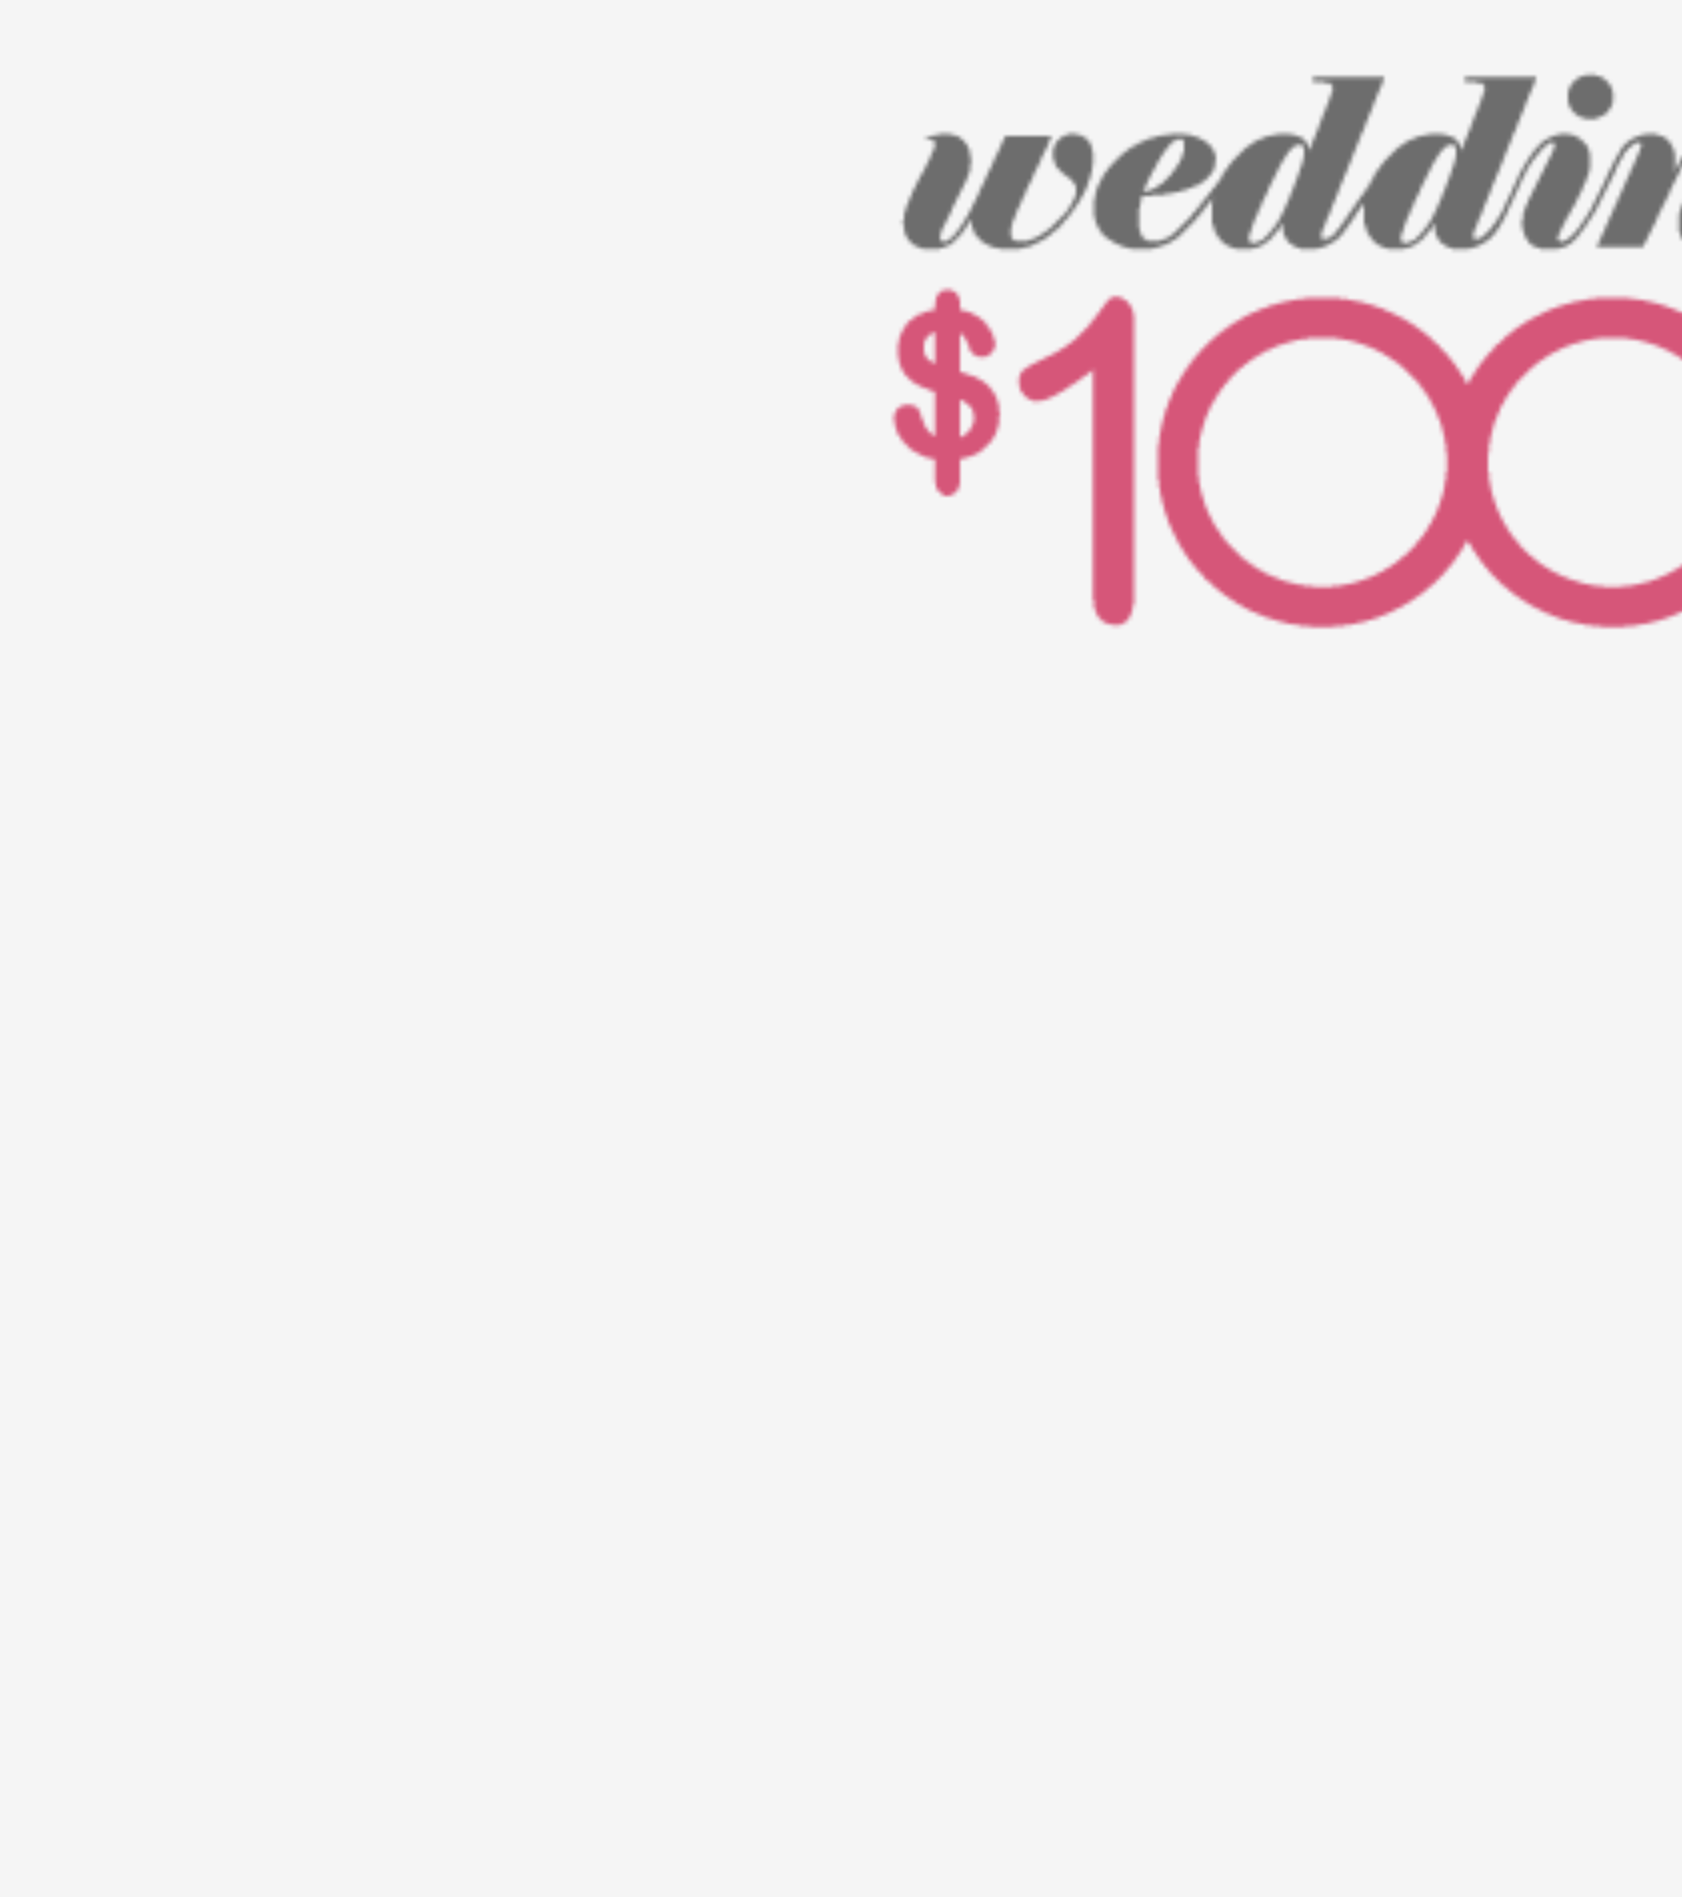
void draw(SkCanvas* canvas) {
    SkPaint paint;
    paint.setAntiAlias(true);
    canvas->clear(0xFFF5F5F5);
    canvas->drawImageRect(SkImages::DeferredFromEncodedData(SkData::MakeFromFileName("img1.png")), SkRect::MakeXYWH(890, 70, 792, 560), SkSamplingOptions());
}
